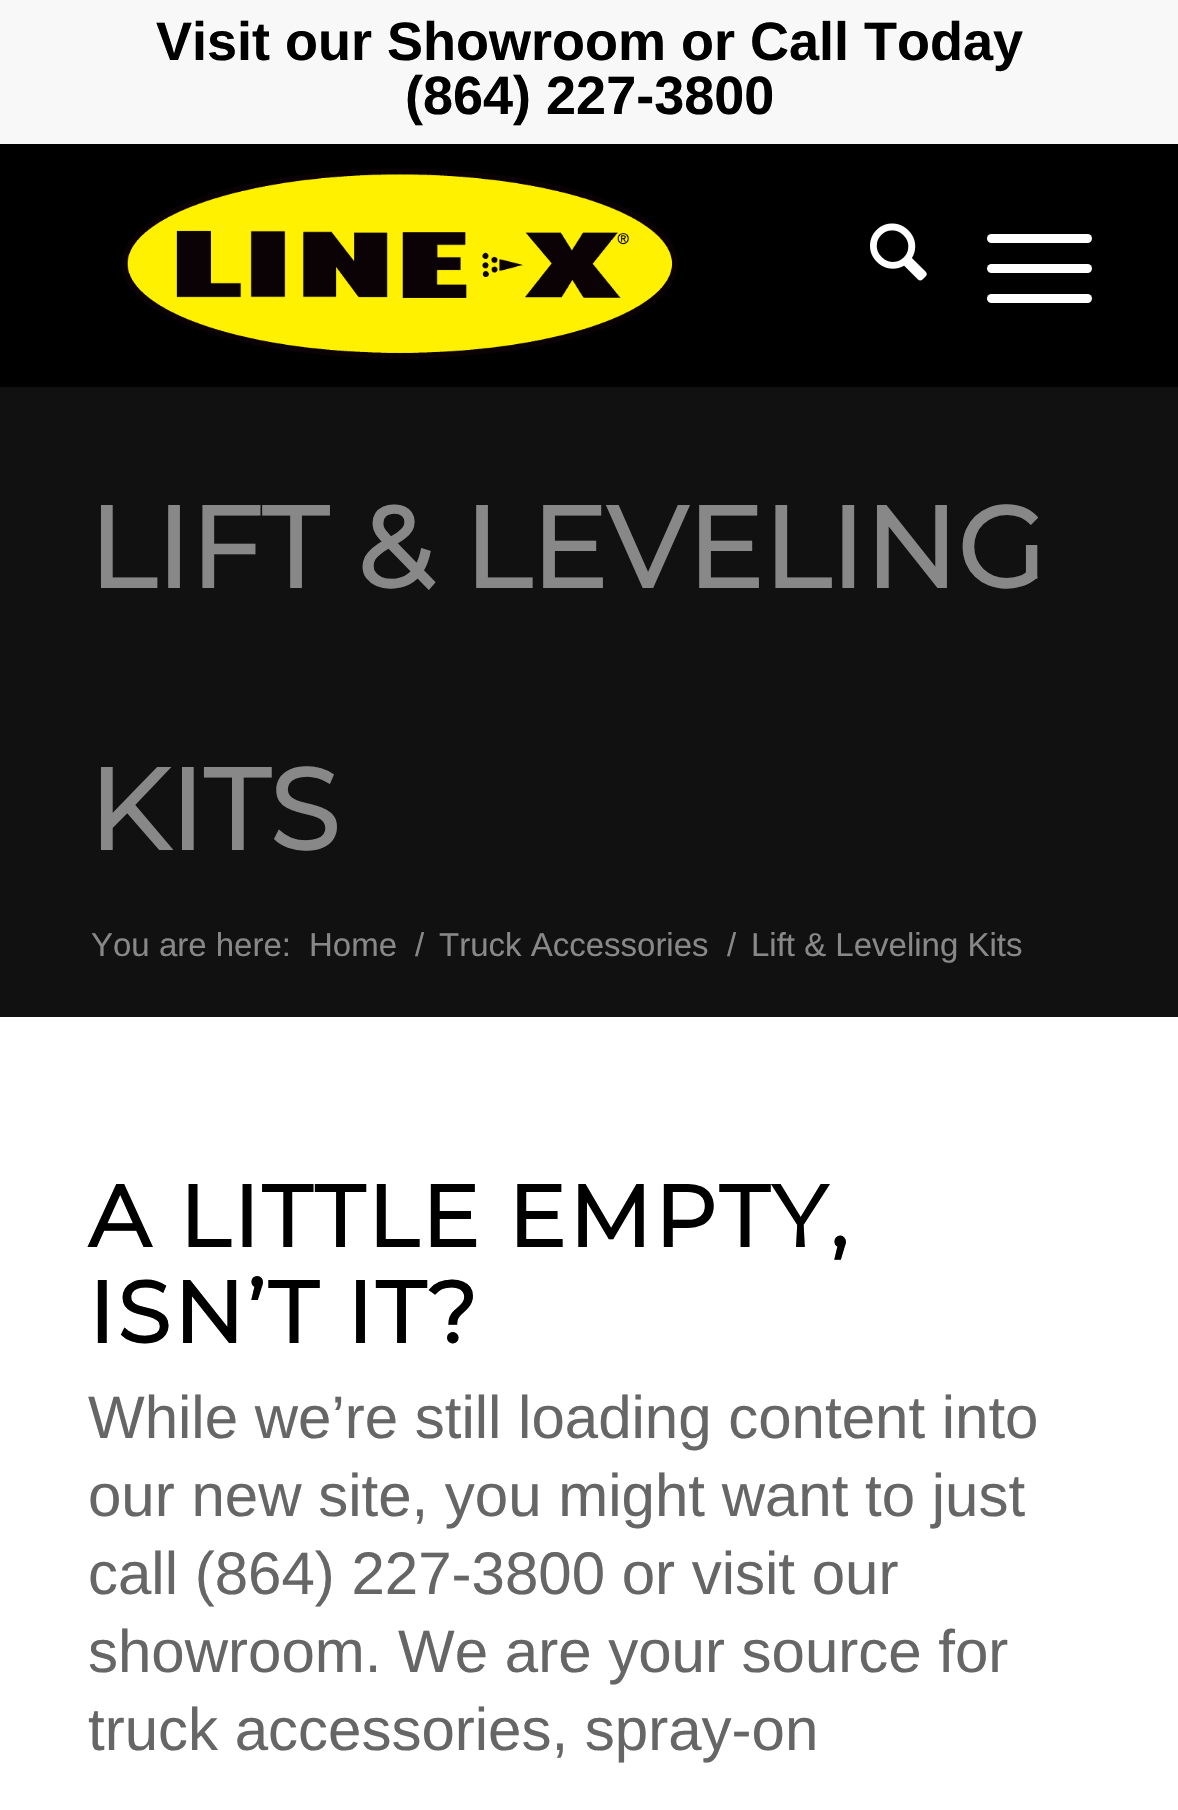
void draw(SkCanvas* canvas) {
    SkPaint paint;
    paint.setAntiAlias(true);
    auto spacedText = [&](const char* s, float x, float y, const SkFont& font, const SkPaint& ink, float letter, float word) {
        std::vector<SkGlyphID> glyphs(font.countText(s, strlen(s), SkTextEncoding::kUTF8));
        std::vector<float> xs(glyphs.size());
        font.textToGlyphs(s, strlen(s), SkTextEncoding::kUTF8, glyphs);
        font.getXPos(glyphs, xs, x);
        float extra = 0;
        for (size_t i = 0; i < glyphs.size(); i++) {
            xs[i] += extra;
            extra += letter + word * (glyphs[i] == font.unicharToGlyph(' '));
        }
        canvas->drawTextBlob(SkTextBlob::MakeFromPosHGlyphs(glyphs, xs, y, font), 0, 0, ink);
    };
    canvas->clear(0xFF111111);
    paint.setColor(0xFFF8F8F8);
    canvas->drawRect(SkRect::MakeXYWH(0, 0, 1178, 144), paint);
    SkFont font1(fontMgr->matchFamilyStyle("Liberation Sans", SkFontStyle::Bold()), 54);
    font1.setSubpixel(true);
    paint.setColor(0xFF000000);
    canvas->drawString("Visit our Showroom or Call Today", 156, 60, font1, paint);
    canvas->drawString("(864) 227-3800", 405, 114, font1, paint);
    canvas->drawRect(SkRect::MakeXYWH(0, 144, 1178, 243), paint);
    canvas->drawImageRect(SkImages::DeferredFromEncodedData(SkData::MakeFromFileName("img1.png")), SkRect::MakeXYWH(122, 169, 556, 190), SkSamplingOptions());
    canvas->drawImageRect(SkImages::DeferredFromEncodedData(SkData::MakeFromFileName("img2.png")), SkRect::MakeXYWH(870, 223, 57, 58), SkSamplingOptions());
    paint.setColor(0xFFFFFFFF);
    canvas->drawRoundRect(SkRect::MakeXYWH(987, 264, 105, 9), 4.5f, 4.5f, paint);
    canvas->drawRoundRect(SkRect::MakeXYWH(987, 234, 105, 9), 4.5f, 4.5f, paint);
    canvas->drawRoundRect(SkRect::MakeXYWH(987, 294, 105, 9), 4.5f, 4.5f, paint);
    SkFont font2(fontMgr->matchFamilyStyle("Montserrat", SkFontStyle::Bold()), 114);
    font2.setSubpixel(true);
    paint.setColor(0xFF888888);
    canvas->drawString("LIFT & LEVELING", 88, 588, font2, paint);
    canvas->drawString("KITS", 88, 850, font2, paint);
    SkFont font3(fontMgr->matchFamilyStyle("Liberation Sans", SkFontStyle::Normal()), 33);
    font3.setSubpixel(true);
    canvas->drawString("You are here:", 91, 956, font3, paint);
    canvas->drawString("Home", 309, 956, font3, paint);
    canvas->drawString("/", 415, 956, font3, paint);
    canvas->drawString("Truck Accessories", 439, 956, font3, paint);
    canvas->drawString("/", 727, 956, font3, paint);
    canvas->drawString("Lift & Leveling Kits", 751, 956, font3, paint);
    paint.setColor(0xFFFFFFFF);
    canvas->drawRect(SkRect::MakeXYWH(0, 1017, 1178, 793), paint);
    SkFont font4(fontMgr->matchFamilyStyle("Montserrat", SkFontStyle::Bold()), 86.5f);
    font4.setSubpixel(true);
    paint.setColor(0xFF000000);
    spacedText("A LITTLE EMPTY,", 88, 1247, font4, paint, 3, 0);
    spacedText("ISN’T IT?", 88, 1343, font4, paint, 3, 0);
    SkFont font5(fontMgr->matchFamilyStyle("Liberation Sans", SkFontStyle::Normal()), 60);
    font5.setSubpixel(true);
    paint.setColor(0xFF666666);
    canvas->drawString("While we’re still loading content into", 88, 1438, font5, paint);
    canvas->drawString("our new site, you might want to just", 88, 1516, font5, paint);
    canvas->drawString("call (864) 227-3800 or visit our", 88, 1594, font5, paint);
    canvas->drawString("showroom. We are your source for", 88, 1672, font5, paint);
    canvas->drawString("truck accessories, spray-on", 88, 1750, font5, paint);
}
